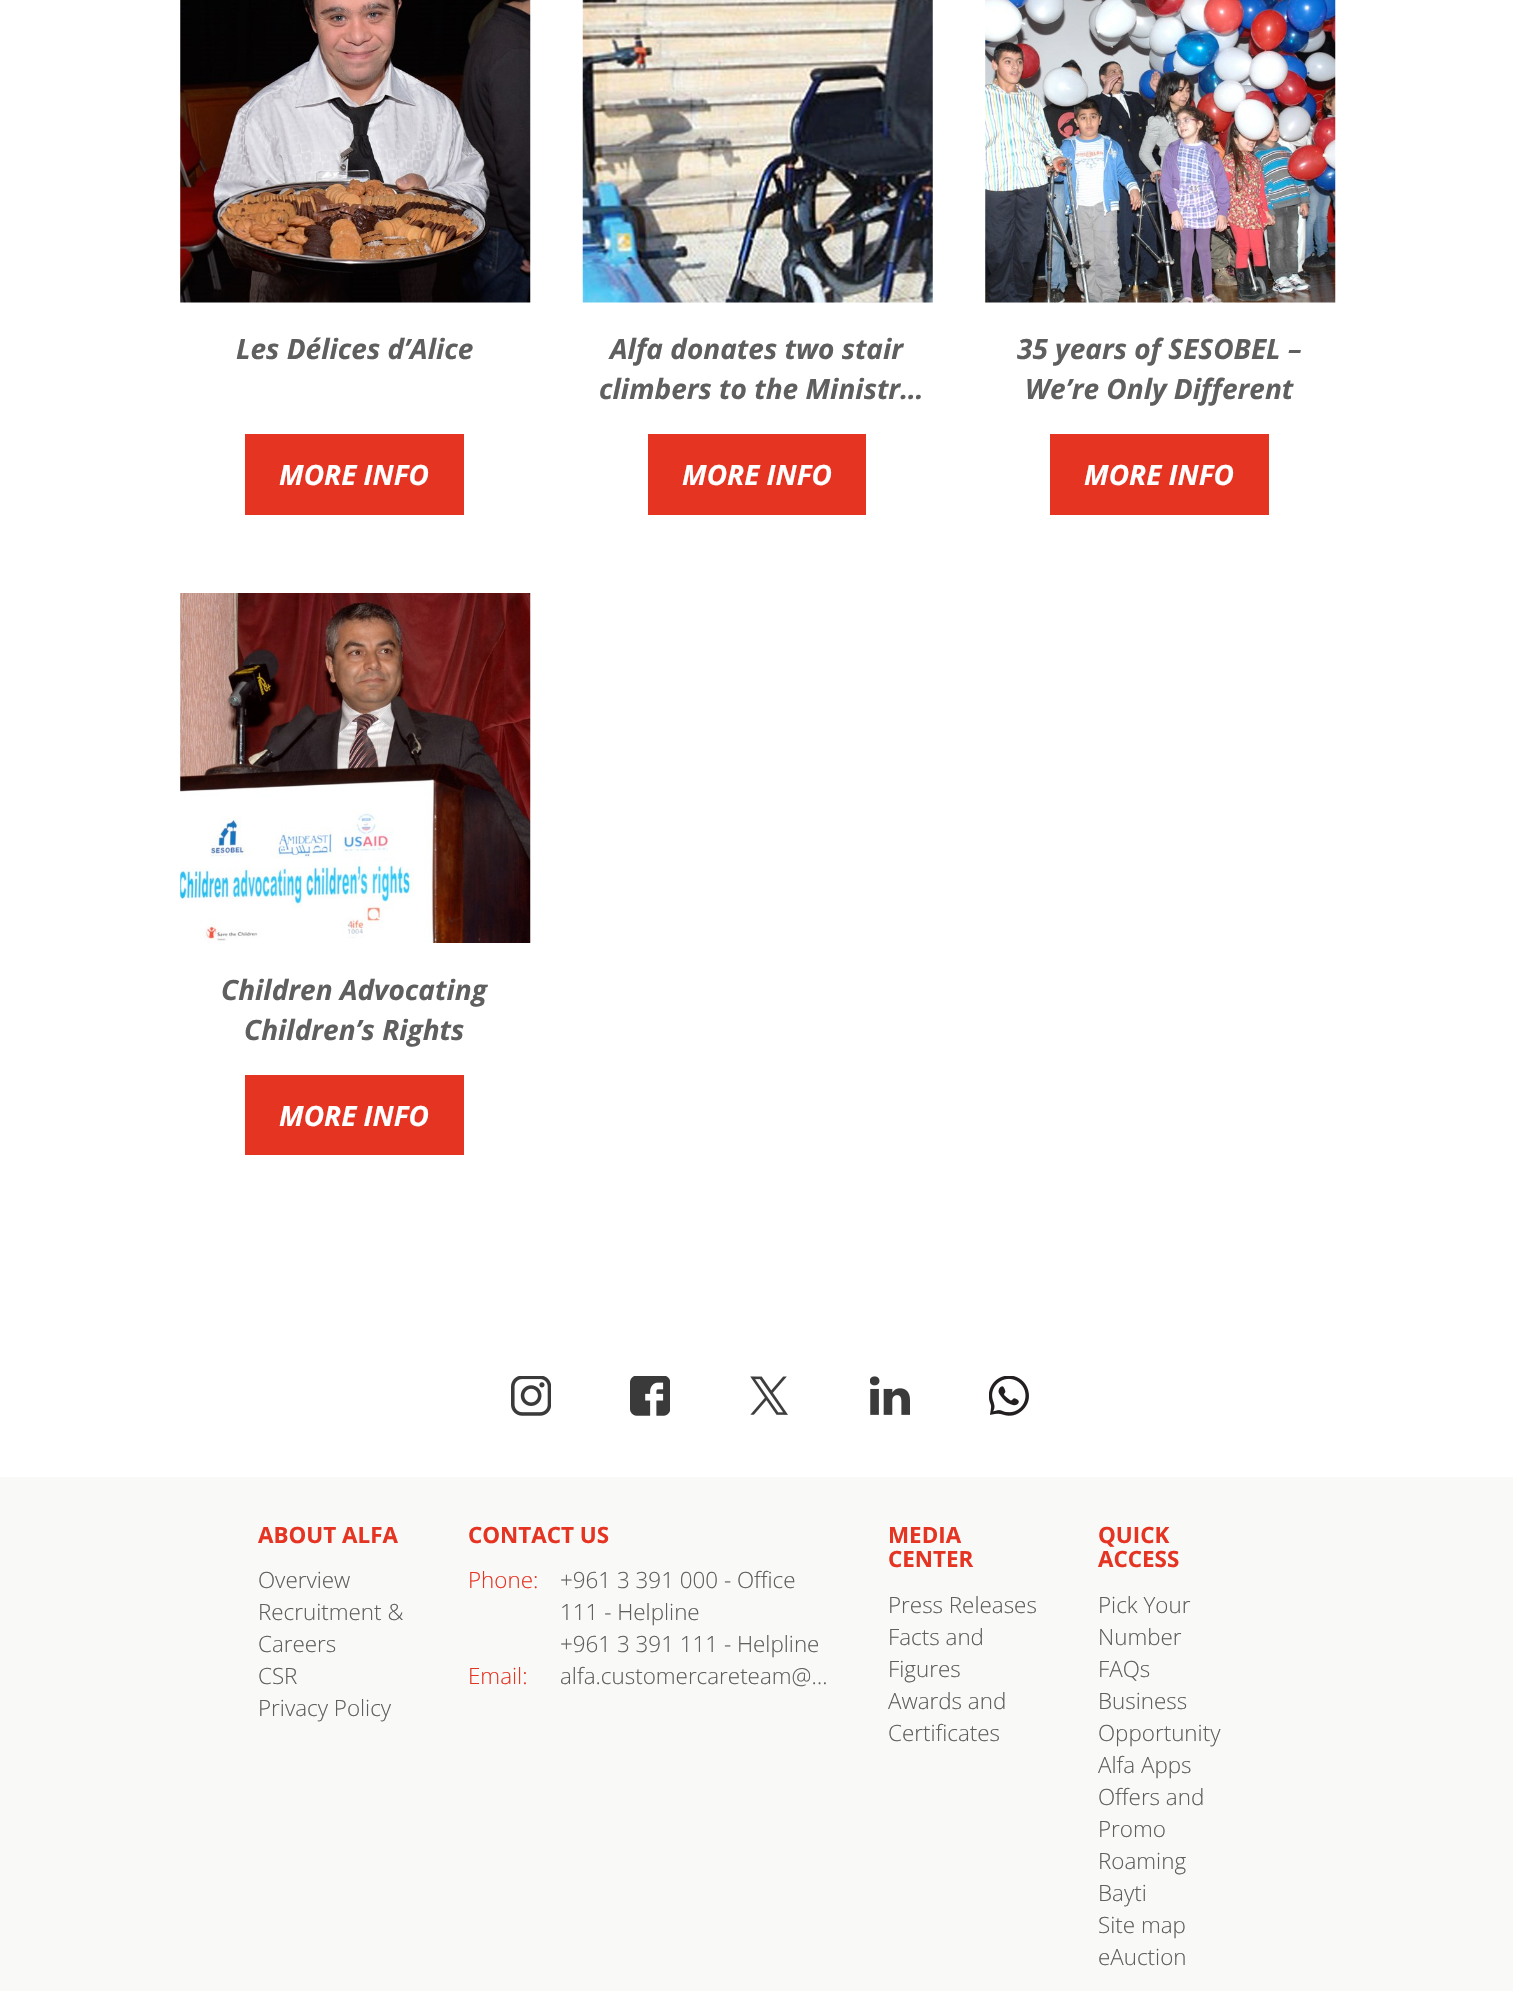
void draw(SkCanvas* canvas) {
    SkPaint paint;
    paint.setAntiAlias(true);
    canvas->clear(0xFFFFFFFF);
    canvas->drawImageRect(SkImages::DeferredFromEncodedData(SkData::MakeFromFileName("img1.png")), SkRect::MakeXYWH(180, 0, 351, 303), SkSamplingOptions());
    SkFont font1(fontMgr->matchFamilyStyle("Open Sans", SkFontStyle::BoldItalic()), 28);
    font1.setSubpixel(true);
    paint.setColor(0xFF5F5F5F);
    canvas->drawString("Les Délices d’Alice", 236, 359, font1, paint);
    paint.setColor(0xFFE63423);
    canvas->drawRect(SkRect::MakeXYWH(245, 434, 219, 81), paint);
    paint.setColor(0xFFFFFFFF);
    canvas->drawString("MORE INFO", 279, 485, font1, paint);
    canvas->drawImageRect(SkImages::DeferredFromEncodedData(SkData::MakeFromFileName("img2.png")), SkRect::MakeXYWH(582, 0, 351, 303), SkSamplingOptions());
    paint.setColor(0xFF5F5F5F);
    canvas->drawString("Alfa donates two stair", 610, 359, font1, paint);
    canvas->drawString("climbers to the Ministr…", 599, 399, font1, paint);
    paint.setColor(0xFFE63423);
    canvas->drawRect(SkRect::MakeXYWH(648, 434, 218, 81), paint);
    paint.setColor(0xFFFFFFFF);
    canvas->drawString("MORE INFO", 682, 485, font1, paint);
    canvas->drawImageRect(SkImages::DeferredFromEncodedData(SkData::MakeFromFileName("img3.png")), SkRect::MakeXYWH(985, 0, 351, 303), SkSamplingOptions());
    paint.setColor(0xFF5F5F5F);
    canvas->drawString("35 years of SESOBEL –", 1017, 359, font1, paint);
    canvas->drawString("We’re Only Different", 1025, 399, font1, paint);
    paint.setColor(0xFFE63423);
    canvas->drawRect(SkRect::MakeXYWH(1050, 434, 219, 81), paint);
    paint.setColor(0xFFFFFFFF);
    canvas->drawString("MORE INFO", 1084, 485, font1, paint);
    canvas->drawImageRect(SkImages::DeferredFromEncodedData(SkData::MakeFromFileName("img4.png")), SkRect::MakeXYWH(180, 593, 351, 350), SkSamplingOptions());
    paint.setColor(0xFF5F5F5F);
    canvas->drawString("Children Advocating", 221, 1000, font1, paint);
    canvas->drawString("Children’s Rights", 244, 1040, font1, paint);
    paint.setColor(0xFFE63423);
    canvas->drawRect(SkRect::MakeXYWH(245, 1075, 219, 80), paint);
    paint.setColor(0xFFFFFFFF);
    canvas->drawString("MORE INFO", 279, 1126, font1, paint);
    canvas->drawImageRect(SkImages::DeferredFromEncodedData(SkData::MakeFromFileName("img5.png")), SkRect::MakeXYWH(511, 1376, 40, 40), SkSamplingOptions());
    canvas->drawImageRect(SkImages::DeferredFromEncodedData(SkData::MakeFromFileName("img6.png")), SkRect::MakeXYWH(630, 1376, 40, 40), SkSamplingOptions());
    canvas->drawImageRect(SkImages::DeferredFromEncodedData(SkData::MakeFromFileName("img7.png")), SkRect::MakeXYWH(750, 1376, 38, 39), SkSamplingOptions());
    canvas->drawImageRect(SkImages::DeferredFromEncodedData(SkData::MakeFromFileName("img8.png")), SkRect::MakeXYWH(870, 1376, 40, 39), SkSamplingOptions());
    canvas->drawImageRect(SkImages::DeferredFromEncodedData(SkData::MakeFromFileName("img9.png")), SkRect::MakeXYWH(989, 1376, 40, 40), SkSamplingOptions());
    paint.setColor(0xFFF9F9F7);
    canvas->drawRect(SkRect::MakeXYWH(0, 1477, 1513, 514), paint);
    SkFont font2(fontMgr->matchFamilyStyle("Open Sans", SkFontStyle::Bold()), 22.4f);
    font2.setSubpixel(true);
    paint.setColor(0xFFE63423);
    canvas->drawString("ABOUT ALFA", 258, 1543, font2, paint);
    SkFont font3(fontMgr->matchFamilyStyle("Open Sans", SkFontStyle(300, SkFontStyle::kNormal_Width, SkFontStyle::kUpright_Slant)), 22.4f);
    font3.setSubpixel(true);
    paint.setColor(0xFF5F5F5F);
    canvas->drawString("Overview", 258, 1588, font3, paint);
    canvas->drawString("Recruitment &", 258, 1620, font3, paint);
    canvas->drawString("Careers", 258, 1652, font3, paint);
    canvas->drawString("CSR", 258, 1684, font3, paint);
    canvas->drawString("Privacy Policy", 258, 1716, font3, paint);
    paint.setColor(0xFFE63423);
    canvas->drawString("CONTACT US", 468, 1543, font2, paint);
    canvas->drawString("Phone:", 468, 1588, font3, paint);
    paint.setColor(0xFF5F5F5F);
    canvas->drawString("+961 3 391 000 - Office", 560, 1588, font3, paint);
    canvas->drawString("111 - Helpline", 560, 1620, font3, paint);
    canvas->drawString("+961 3 391 111 - Helpline", 560, 1652, font3, paint);
    paint.setColor(0xFFE63423);
    canvas->drawString("Email:", 468, 1684, font3, paint);
    paint.setColor(0xFF5F5F5F);
    canvas->drawString("alfa.customercareteam@…", 560, 1684, font3, paint);
    paint.setColor(0xFFE63423);
    canvas->drawString("MEDIA", 888, 1543, font2, paint);
    canvas->drawString("CENTER", 888, 1567, font2, paint);
    paint.setColor(0xFF5F5F5F);
    canvas->drawString("Press Releases", 888, 1613, font3, paint);
    canvas->drawString("Facts and", 888, 1645, font3, paint);
    canvas->drawString("Figures", 888, 1677, font3, paint);
    canvas->drawString("Awards and", 888, 1709, font3, paint);
    canvas->drawString("Certificates", 888, 1741, font3, paint);
    paint.setColor(0xFFE63423);
    canvas->drawString("QUICK", 1098, 1543, font2, paint);
    canvas->drawString("ACCESS", 1098, 1567, font2, paint);
    paint.setColor(0xFF5F5F5F);
    canvas->drawString("Pick Your", 1098, 1613, font3, paint);
    canvas->drawString("Number", 1098, 1645, font3, paint);
    canvas->drawString("FAQs", 1098, 1677, font3, paint);
    canvas->drawString("Business", 1098, 1709, font3, paint);
    canvas->drawString("Opportunity", 1098, 1741, font3, paint);
    canvas->drawString("Alfa Apps", 1098, 1773, font3, paint);
    canvas->drawString("Offers and", 1098, 1805, font3, paint);
    canvas->drawString("Promo", 1098, 1837, font3, paint);
    canvas->drawString("Roaming", 1098, 1869, font3, paint);
    canvas->drawString("Bayti", 1098, 1901, font3, paint);
    canvas->drawString("Site map", 1098, 1933, font3, paint);
    canvas->drawString("eAuction", 1098, 1965, font3, paint);
}
